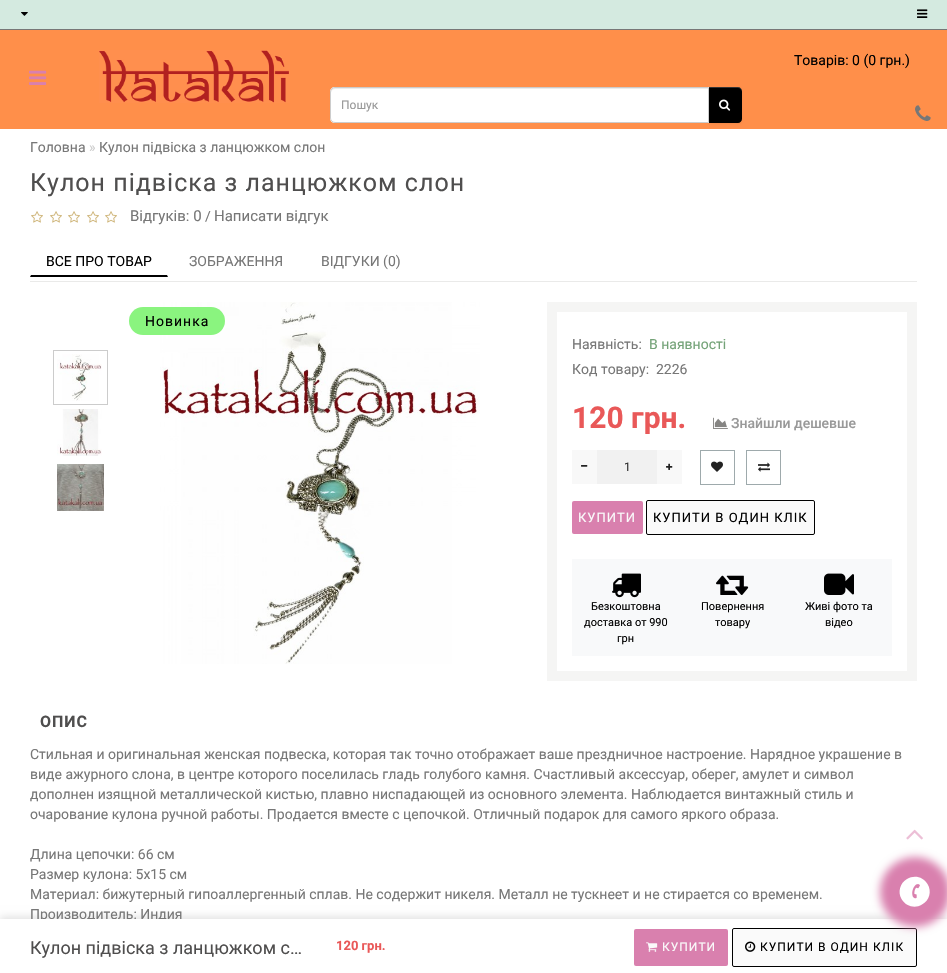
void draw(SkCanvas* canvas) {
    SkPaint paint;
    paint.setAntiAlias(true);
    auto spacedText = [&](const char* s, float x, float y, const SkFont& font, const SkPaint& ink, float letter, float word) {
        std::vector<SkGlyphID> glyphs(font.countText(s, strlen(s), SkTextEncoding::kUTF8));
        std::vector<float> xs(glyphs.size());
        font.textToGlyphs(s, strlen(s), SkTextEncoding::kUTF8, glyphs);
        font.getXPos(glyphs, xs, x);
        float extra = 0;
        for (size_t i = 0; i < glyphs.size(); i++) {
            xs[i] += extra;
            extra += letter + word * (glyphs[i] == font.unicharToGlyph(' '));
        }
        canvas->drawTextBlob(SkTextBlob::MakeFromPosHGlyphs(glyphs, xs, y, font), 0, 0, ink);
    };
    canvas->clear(0xFFFFFFFF);
    paint.setColor(0xFFD4EAE0);
    canvas->drawRect(SkRect::MakeXYWH(0, 0, 947, 29), paint);
    paint.setColor(0xFF777777);
    canvas->drawRect(SkRect::MakeXYWH(0, 29, 947, 1), paint);
    canvas->drawImageRect(SkImages::DeferredFromEncodedData(SkData::MakeFromFileName("img1.png")), SkRect::MakeXYWH(21, 12, 7, 4), SkSamplingOptions());
    canvas->drawImageRect(SkImages::DeferredFromEncodedData(SkData::MakeFromFileName("img2.png")), SkRect::MakeXYWH(917, 9, 11, 9), SkSamplingOptions());
    paint.setColor(0xFFFF8F4A);
    canvas->drawRect(SkRect::MakeXYWH(0, 30, 947, 99), paint);
    canvas->drawImageRect(SkImages::DeferredFromEncodedData(SkData::MakeFromFileName("img3.png")), SkRect::MakeXYWH(29, 70, 18, 15), SkSamplingOptions());
    canvas->drawImageRect(SkImages::DeferredFromEncodedData(SkData::MakeFromFileName("img4.png")), SkRect::MakeXYWH(99, 50, 191, 53), SkSamplingOptions());
    SkFont font1(fontMgr->matchFamilyStyle("Roboto", SkFontStyle::Normal()), 14);
    font1.setSubpixel(true);
    paint.setColor(0xFF000000);
    canvas->drawString("Товарів: 0 (0 грн.)", 794, 65, font1, paint);
    paint.setColor(0x0D000000);
    paint.setMaskFilter(SkMaskFilter::MakeBlur(kNormal_SkBlurStyle, 1));
    canvas->drawRoundRect(SkRect::MakeXYWH(709, 88, 33, 36), 4, 4, paint);
    paint.setMaskFilter(nullptr);
    paint.setColor(0xFFFFFFFF);
    canvas->drawPath(SkPathBuilder().moveTo(335, 87).lineTo(709, 87).lineTo(709, 123).lineTo(335, 123).cubicTo(332, 123, 330, 121, 330, 118).lineTo(330, 92).cubicTo(330, 89, 332, 87, 335, 87).close().detach(), paint);
    paint.setColor(0xFFECECEC);
    canvas->drawPath(SkPathBuilder().moveTo(335, 89).lineTo(708, 89).lineTo(708, 88).lineTo(335, 88).cubicTo(332, 88, 331, 90, 331, 93).cubicTo(331, 91, 333, 89, 335, 89).close().detach(), paint);
    paint.setStyle(SkPaint::kStroke_Style);
    paint.setStrokeWidth(1);
    paint.setColor(0xFFCCCCCC);
    canvas->drawPath(SkPathBuilder().moveTo(335, 87.5f).lineTo(708.5f, 87.5f).lineTo(708.5f, 122.5f).lineTo(335, 122.5f).cubicTo(332.5f, 122.5f, 330.5f, 120.5f, 330.5f, 118).lineTo(330.5f, 92).cubicTo(330.5f, 89.5f, 332.5f, 87.5f, 335, 87.5f).close().detach(), paint);
    SkFont font2(fontMgr->matchFamilyStyle("Roboto", SkFontStyle::Normal()), 12);
    font2.setSubpixel(true);
    paint.setStyle(SkPaint::kFill_Style);
    paint.setColor(0xFF999999);
    canvas->drawString("Пошук", 341, 109, font2, paint);
    paint.setColor(0xFF000000);
    canvas->drawPath(SkPathBuilder().moveTo(709, 87).lineTo(738, 87).cubicTo(740, 87, 742, 89, 742, 91).lineTo(742, 119).cubicTo(742, 121, 740, 123, 738, 123).lineTo(709, 123).close().detach(), paint);
    paint.setColor(0x33FFFFFF);
    canvas->drawPath(SkPathBuilder().moveTo(709, 88).lineTo(738, 88).cubicTo(740, 88, 742, 90, 742, 92).lineTo(742, 91).cubicTo(742, 89, 740, 87, 738, 87).lineTo(709, 87).close().detach(), paint);
    canvas->drawImageRect(SkImages::DeferredFromEncodedData(SkData::MakeFromFileName("img5.png")), SkRect::MakeXYWH(719, 99, 12, 12), SkSamplingOptions());
    canvas->drawImageRect(SkImages::DeferredFromEncodedData(SkData::MakeFromFileName("img6.png")), SkRect::MakeXYWH(915, 105, 16, 16), SkSamplingOptions());
    paint.setColor(0xFF777777);
    canvas->drawString("Головна", 30, 152, font1, paint);
    paint.setColor(0xFFCCCCCC);
    canvas->drawString("»", 89, 152, font1, paint);
    paint.setColor(0xFF777777);
    canvas->drawString("Кулон підвіска з ланцюжком слон", 99, 152, font1, paint);
    SkFont font3(fontMgr->matchFamilyStyle("Roboto", SkFontStyle::Normal()), 25);
    font3.setSubpixel(true);
    paint.setColor(0xFF4F4E4E);
    spacedText("Кулон підвіска з ланцюжком слон", 30, 191, font3, paint, 1, 0);
    canvas->drawImageRect(SkImages::DeferredFromEncodedData(SkData::MakeFromFileName("img7.png")), SkRect::MakeXYWH(31, 211, 12, 12), SkSamplingOptions());
    canvas->drawImageRect(SkImages::DeferredFromEncodedData(SkData::MakeFromFileName("img7.png")), SkRect::MakeXYWH(50, 211, 12, 12), SkSamplingOptions());
    canvas->drawImageRect(SkImages::DeferredFromEncodedData(SkData::MakeFromFileName("img7.png")), SkRect::MakeXYWH(68, 211, 12, 12), SkSamplingOptions());
    canvas->drawImageRect(SkImages::DeferredFromEncodedData(SkData::MakeFromFileName("img7.png")), SkRect::MakeXYWH(87, 211, 12, 12), SkSamplingOptions());
    canvas->drawImageRect(SkImages::DeferredFromEncodedData(SkData::MakeFromFileName("img7.png")), SkRect::MakeXYWH(105, 211, 12, 12), SkSamplingOptions());
    SkFont font4(fontMgr->matchFamilyStyle("Roboto", SkFontStyle::Normal()), 15);
    font4.setSubpixel(true);
    paint.setColor(0xFF777777);
    canvas->drawString("Відгуків: 0", 130, 221, font4, paint);
    canvas->drawString("/", 205, 221, font1, paint);
    canvas->drawString("Написати відгук", 214, 221, font4, paint);
    paint.setColor(0xFFEAEAE9);
    canvas->drawRect(SkRect::MakeXYWH(30, 281, 887, 1), paint);
    paint.setColor(0xFF000000);
    canvas->drawPath(SkPathBuilder().moveTo(168, 277).lineTo(30, 277).lineTo(31, 275).lineTo(167, 275).close().detach(), paint);
    canvas->drawString("ВСЕ ПРО ТОВАР", 46, 266, font1, paint);
    paint.setColor(0xFF777777);
    canvas->drawString("ЗОБРАЖЕННЯ", 189, 266, font1, paint);
    canvas->drawString("ВІДГУКИ (0)", 321, 266, font1, paint);
    paint.setColor(0x1F000000);
    paint.setMaskFilter(SkMaskFilter::MakeBlur(kNormal_SkBlurStyle, 4));
    canvas->drawRect(SkRect::MakeXYWH(0, 917, 947, 54), paint);
    paint.setMaskFilter(nullptr);
    paint.setColor(0xFF777777);
    canvas->drawString("Производитель: Индия", 30, 919, font1, paint);
    paint.setColor(0xFFFFFFFF);
    canvas->drawRect(SkRect::MakeXYWH(0, 919, 947, 54), paint);
    SkFont font5(fontMgr->matchFamilyStyle("Roboto", SkFontStyle::Normal()), 18);
    font5.setSubpixel(true);
    paint.setColor(0xFF4F4E4E);
    canvas->drawString("Кулон підвіска з ланцюжком с…", 30, 954, font5, paint);
    SkFont font6(fontMgr->matchFamilyStyle("Roboto", SkFontStyle::Bold()), 13);
    font6.setSubpixel(true);
    paint.setColor(0xFFE95858);
    canvas->drawString("120 грн.", 336, 950, font6, paint);
    paint.setColor(0xFFD980AE);
    canvas->drawRoundRect(SkRect::MakeXYWH(634, 929, 94, 37), 2, 2, paint);
    canvas->drawImageRect(SkImages::DeferredFromEncodedData(SkData::MakeFromFileName("img8.png")), SkRect::MakeXYWH(646, 942, 12, 10), SkSamplingOptions());
    paint.setColor(0xFFFAFAFA);
    spacedText("КУПИТИ", 662, 951, font2, paint, 1, 0);
    canvas->drawRoundRect(SkRect::MakeXYWH(732.5f, 928.5f, 184, 38), 1.5f, 1.5f, paint);
    paint.setStyle(SkPaint::kStroke_Style);
    paint.setColor(0xFF000000);
    canvas->drawRoundRect(SkRect::MakeXYWH(732.5f, 928.5f, 184, 38), 1.5f, 1.5f, paint);
    canvas->drawImageRect(SkImages::DeferredFromEncodedData(SkData::MakeFromFileName("img9.png")), SkRect::MakeXYWH(745, 941, 11, 11), SkSamplingOptions());
    paint.setStyle(SkPaint::kFill_Style);
    spacedText("КУПИТИ В ОДИН КЛІК", 760, 951, font2, paint, 1, 0);
    canvas->drawImageRect(SkImages::DeferredFromEncodedData(SkData::MakeFromFileName("img10.png")), SkRect::MakeXYWH(160, 302, 320, 362), SkSamplingOptions());
    paint.setColor(0xFF8AF47F);
    canvas->drawRoundRect(SkRect::MakeXYWH(129, 307, 96, 28), 14, 14, paint);
    paint.setColor(0xFF000000);
    spacedText("Новинка", 145, 326, font1, paint, 1, 0);
    paint.setStyle(SkPaint::kStroke_Style);
    paint.setColor(0xFFCCCCCC);
    canvas->drawRect(SkRect::MakeXYWH(53.5f, 350.5f, 54, 54), paint);
    canvas->drawImageRect(SkImages::DeferredFromEncodedData(SkData::MakeFromFileName("img11.png")), SkRect::MakeXYWH(57, 354, 45, 47), SkSamplingOptions());
    canvas->drawImageRect(SkImages::DeferredFromEncodedData(SkData::MakeFromFileName("img12.png")), SkRect::MakeXYWH(57, 409, 45, 47), SkSamplingOptions());
    canvas->drawImageRect(SkImages::DeferredFromEncodedData(SkData::MakeFromFileName("img13.png")), SkRect::MakeXYWH(57, 464, 47, 47), SkSamplingOptions());
    paint.setStrokeWidth(10);
    paint.setColor(0xFFF5F5F4);
    canvas->drawRect(SkRect::MakeXYWH(552, 307, 360, 369), paint);
    paint.setStyle(SkPaint::kFill_Style);
    paint.setColor(0xFF777777);
    canvas->drawString("Наявність:", 572, 349, font1, paint);
    paint.setColor(0xFF74A378);
    canvas->drawString("В наявності", 649, 349, font1, paint);
    paint.setColor(0xFF777777);
    canvas->drawString("Код товару:", 572, 374, font1, paint);
    canvas->drawString("2226", 656, 374, font1, paint);
    SkFont font7(fontMgr->matchFamilyStyle("Roboto", SkFontStyle::Bold()), 30);
    font7.setSubpixel(true);
    paint.setColor(0xFFE95858);
    canvas->drawString("120 грн.", 572, 428, font7, paint);
    canvas->drawImageRect(SkImages::DeferredFromEncodedData(SkData::MakeFromFileName("img14.png")), SkRect::MakeXYWH(713, 417, 15, 12), SkSamplingOptions());
    SkFont font8(fontMgr->matchFamilyStyle("Roboto", SkFontStyle(500, SkFontStyle::kNormal_Width, SkFontStyle::kUpright_Slant)), 14);
    font8.setSubpixel(true);
    paint.setColor(0xFF999999);
    canvas->drawString("Знайшли дешевше", 731, 428, font8, paint);
    paint.setColor(0xFFF8F8F8);
    canvas->drawRect(SkRect::MakeXYWH(572, 450, 25, 34), paint);
    canvas->drawImageRect(SkImages::DeferredFromEncodedData(SkData::MakeFromFileName("img15.png")), SkRect::MakeXYWH(581, 465, 7, 2), SkSamplingOptions());
    paint.setColor(0xFFF1F1F1);
    canvas->drawRect(SkRect::MakeXYWH(597, 450, 60, 34), paint);
    paint.setColor(0xFF2F2F2F);
    canvas->drawString("1", 624, 471, font2, paint);
    paint.setColor(0xFFF8F8F8);
    canvas->drawRect(SkRect::MakeXYWH(657, 450, 25, 34), paint);
    canvas->drawImageRect(SkImages::DeferredFromEncodedData(SkData::MakeFromFileName("img16.png")), SkRect::MakeXYWH(666, 463, 7, 7), SkSamplingOptions());
    paint.setStyle(SkPaint::kStroke_Style);
    paint.setStrokeWidth(1);
    paint.setColor(0xFF9EAAAC);
    canvas->drawRect(SkRect::MakeXYWH(700.5f, 450.5f, 34, 34), paint);
    canvas->drawImageRect(SkImages::DeferredFromEncodedData(SkData::MakeFromFileName("img17.png")), SkRect::MakeXYWH(711, 461, 12, 11), SkSamplingOptions());
    canvas->drawRect(SkRect::MakeXYWH(746.5f, 450.5f, 34, 34), paint);
    canvas->drawImageRect(SkImages::DeferredFromEncodedData(SkData::MakeFromFileName("img18.png")), SkRect::MakeXYWH(758, 462, 12, 10), SkSamplingOptions());
    paint.setStyle(SkPaint::kFill_Style);
    paint.setColor(0xFFD980AE);
    canvas->drawRoundRect(SkRect::MakeXYWH(572, 501, 71, 33), 2, 2, paint);
    SkFont font9(fontMgr->matchFamilyStyle("Roboto", SkFontStyle::Normal()), 13);
    font9.setSubpixel(true);
    paint.setColor(0xFFFAFAFA);
    spacedText("КУПИТИ", 578, 522, font9, paint, 1, 0);
    canvas->drawRoundRect(SkRect::MakeXYWH(646.5f, 500.5f, 168, 34), 1.5f, 1.5f, paint);
    paint.setStyle(SkPaint::kStroke_Style);
    paint.setColor(0xFF000000);
    canvas->drawRoundRect(SkRect::MakeXYWH(646.5f, 500.5f, 168, 34), 1.5f, 1.5f, paint);
    paint.setStyle(SkPaint::kFill_Style);
    spacedText("КУПИТИ В ОДИН КЛІК", 653, 522, font9, paint, 1, 0);
    paint.setColor(0xFFF8F9FA);
    canvas->drawRect(SkRect::MakeXYWH(572, 559, 320, 97), paint);
    canvas->drawImageRect(SkImages::DeferredFromEncodedData(SkData::MakeFromFileName("img19.png")), SkRect::MakeXYWH(612, 573, 29, 25), SkSamplingOptions());
    SkFont font10(fontMgr->matchFamilyStyle("Roboto", SkFontStyle::Normal()), 11);
    font10.setSubpixel(true);
    paint.setColor(0xFF000000);
    canvas->drawString("Безкоштовна", 591, 610, font10, paint);
    canvas->drawString("доставка от 990", 584, 626, font10, paint);
    canvas->drawString("грн", 617, 642, font10, paint);
    canvas->drawImageRect(SkImages::DeferredFromEncodedData(SkData::MakeFromFileName("img20.png")), SkRect::MakeXYWH(716, 575, 33, 20), SkSamplingOptions());
    canvas->drawString("Повернення", 701, 610, font10, paint);
    canvas->drawString("товару", 715, 626, font10, paint);
    canvas->drawImageRect(SkImages::DeferredFromEncodedData(SkData::MakeFromFileName("img21.png")), SkRect::MakeXYWH(824, 573, 30, 22), SkSamplingOptions());
    canvas->drawString("Живі фото та", 805, 610, font10, paint);
    canvas->drawString("відео", 825, 626, font10, paint);
    SkFont font11(fontMgr->matchFamilyStyle("Roboto", SkFontStyle::Bold()), 16);
    font11.setSubpixel(true);
    paint.setColor(0xFF4F4E4E);
    spacedText("ОПИС", 40, 727, font11, paint, 1, 0);
    paint.setColor(0xFF777777);
    canvas->drawString("Стильная и оригинальная женская подвеска, которая так точно отображает ваше прездничное настроение. Нарядное украшение в", 30, 759, font1, paint);
    canvas->drawString("виде ажурного слона, в центре которого поселилась гладь голубого камня. Счастливый аксессуар, оберег, амулет и символ", 30, 779, font1, paint);
    canvas->drawString("дополнен изящной металлической кистью, плавно ниспадающей из основного элемента. Наблюдается винтажный стиль и", 30, 799, font1, paint);
    canvas->drawString("очарование кулона ручной работы. Продается вместе с цепочкой. Отличный подарок для самого яркого образа.", 30, 819, font1, paint);
    canvas->drawString("Длина цепочки: 66 см", 30, 859, font1, paint);
    canvas->drawString("Размер кулона: 5х15 см", 30, 879, font1, paint);
    canvas->drawString("Материал: бижутерный гипоаллергенный сплав. Не содержит никеля. Металл не тускнеет и не стирается со временем.", 30, 899, font1, paint);
    canvas->save();
    canvas->clipPath(SkPathBuilder(SkPathFillType::kEvenOdd).moveTo(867, 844).lineTo(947, 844).lineTo(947, 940).lineTo(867, 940).close().moveTo(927.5f, 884).cubicTo(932, 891.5f, 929.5f, 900.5f, 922, 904.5f).cubicTo(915, 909, 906, 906.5f, 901.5f, 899).cubicTo(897.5f, 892, 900, 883, 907, 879).cubicTo(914.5f, 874.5f, 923.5f, 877, 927.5f, 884).close().detach(), true);
    paint.setColor(0xFFD980AE);
    paint.setMaskFilter(SkMaskFilter::MakeBlur(kNormal_SkBlurStyle, 4));
    canvas->drawRoundRect(SkRect::MakeXYWH(880, 857, 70, 70), 35, 35, paint);
    paint.setMaskFilter(nullptr);
    canvas->restore();
    canvas->drawImageRect(SkImages::DeferredFromEncodedData(SkData::MakeFromFileName("img22.png")), SkRect::MakeXYWH(912, 884, 8, 15), SkSamplingOptions());
    canvas->drawImageRect(SkImages::DeferredFromEncodedData(SkData::MakeFromFileName("img23.png")), SkRect::MakeXYWH(906, 829, 17, 11), SkSamplingOptions());
}
